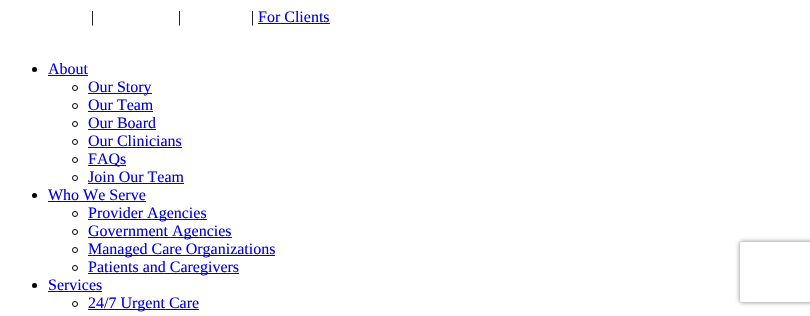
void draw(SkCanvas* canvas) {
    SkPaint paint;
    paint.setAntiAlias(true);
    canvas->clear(0xFFFFFFFF);
    SkFont font1(fontMgr->matchFamilyStyle("Liberation Serif", SkFontStyle::Normal()), 16);
    font1.setSubpixel(true);
    paint.setColor(0xFF000000);
    canvas->drawString("|", 91, 22, font1, paint);
    canvas->drawString("|", 178, 22, font1, paint);
    canvas->drawString("|", 251, 22, font1, paint);
    paint.setColor(0xFF0000EE);
    canvas->drawString("For Clients", 258, 22, font1, paint);
    canvas->drawRect(SkRect::MakeXYWH(258, 23, 72, 1), paint);
    paint.setColor(0xFF000000);
    canvas->drawCircle(34.5f, 69.5f, 2.5f, paint);
    paint.setColor(0xFF0000EE);
    canvas->drawString("About", 48, 74, font1, paint);
    canvas->drawRect(SkRect::MakeXYWH(48, 75, 40, 1), paint);
    paint.setStyle(SkPaint::kStroke_Style);
    paint.setStrokeWidth(1);
    paint.setColor(0xFF000000);
    canvas->drawCircle(75, 88, 2.5f, paint);
    paint.setStyle(SkPaint::kFill_Style);
    paint.setColor(0xFF0000EE);
    canvas->drawRect(SkRect::MakeXYWH(88, 93, 64, 1), paint);
    canvas->drawString("Our Story", 88, 92, font1, paint);
    paint.setStyle(SkPaint::kStroke_Style);
    paint.setColor(0xFF000000);
    canvas->drawCircle(75, 106, 2.5f, paint);
    paint.setStyle(SkPaint::kFill_Style);
    paint.setColor(0xFF0000EE);
    canvas->drawString("Our Team", 88, 110, font1, paint);
    canvas->drawRect(SkRect::MakeXYWH(88, 111, 65, 1), paint);
    paint.setStyle(SkPaint::kStroke_Style);
    paint.setColor(0xFF000000);
    canvas->drawCircle(75, 124, 2.5f, paint);
    paint.setStyle(SkPaint::kFill_Style);
    paint.setColor(0xFF0000EE);
    canvas->drawString("Our Board", 88, 128, font1, paint);
    canvas->drawRect(SkRect::MakeXYWH(88, 129, 68, 1), paint);
    paint.setStyle(SkPaint::kStroke_Style);
    paint.setColor(0xFF000000);
    canvas->drawCircle(75, 142, 2.5f, paint);
    paint.setStyle(SkPaint::kFill_Style);
    paint.setColor(0xFF0000EE);
    canvas->drawString("Our Clinicians", 88, 146, font1, paint);
    canvas->drawRect(SkRect::MakeXYWH(88, 147, 94, 1), paint);
    paint.setStyle(SkPaint::kStroke_Style);
    paint.setColor(0xFF000000);
    canvas->drawCircle(75, 160, 2.5f, paint);
    paint.setStyle(SkPaint::kFill_Style);
    paint.setColor(0xFF0000EE);
    canvas->drawRect(SkRect::MakeXYWH(88, 165, 38, 1), paint);
    canvas->drawString("FAQs", 88, 164, font1, paint);
    paint.setStyle(SkPaint::kStroke_Style);
    paint.setColor(0xFF000000);
    canvas->drawCircle(75, 178, 2.5f, paint);
    paint.setStyle(SkPaint::kFill_Style);
    paint.setColor(0xFF0000EE);
    canvas->drawString("Join Our Team", 88, 182, font1, paint);
    canvas->drawRect(SkRect::MakeXYWH(88, 183, 96, 1), paint);
    paint.setColor(0xFF000000);
    canvas->drawCircle(34.5f, 195.5f, 2.5f, paint);
    paint.setColor(0xFF0000EE);
    canvas->drawString("Who We Serve", 48, 200, font1, paint);
    canvas->drawRect(SkRect::MakeXYWH(48, 201, 98, 1), paint);
    paint.setStyle(SkPaint::kStroke_Style);
    paint.setColor(0xFF000000);
    canvas->drawCircle(75, 214, 2.5f, paint);
    paint.setStyle(SkPaint::kFill_Style);
    paint.setColor(0xFF0000EE);
    canvas->drawRect(SkRect::MakeXYWH(88, 219, 119, 1), paint);
    canvas->drawString("Provider Agencies", 88, 218, font1, paint);
    paint.setStyle(SkPaint::kStroke_Style);
    paint.setColor(0xFF000000);
    canvas->drawCircle(75, 232, 2.5f, paint);
    paint.setStyle(SkPaint::kFill_Style);
    paint.setColor(0xFF0000EE);
    canvas->drawRect(SkRect::MakeXYWH(88, 237, 144, 1), paint);
    canvas->drawString("Government Agencies", 88, 236, font1, paint);
    paint.setStyle(SkPaint::kStroke_Style);
    paint.setColor(0xFF000000);
    canvas->drawCircle(75, 250, 2.5f, paint);
    paint.setStyle(SkPaint::kFill_Style);
    paint.setColor(0xFF0000EE);
    canvas->drawRect(SkRect::MakeXYWH(88, 255, 187, 1), paint);
    canvas->drawString("Managed Care Organizations", 88, 254, font1, paint);
    paint.setStyle(SkPaint::kStroke_Style);
    paint.setColor(0xFF000000);
    canvas->drawCircle(75, 268, 2.5f, paint);
    paint.setStyle(SkPaint::kFill_Style);
    paint.setColor(0xFF0000EE);
    canvas->drawRect(SkRect::MakeXYWH(88, 273, 151, 1), paint);
    canvas->drawString("Patients and Caregivers", 88, 272, font1, paint);
    paint.setColor(0xFF000000);
    canvas->drawCircle(34.5f, 285.5f, 2.5f, paint);
    paint.setColor(0xFF0000EE);
    canvas->drawString("Services", 48, 290, font1, paint);
    canvas->drawRect(SkRect::MakeXYWH(48, 291, 54, 1), paint);
    paint.setStyle(SkPaint::kStroke_Style);
    paint.setColor(0xFF000000);
    canvas->drawCircle(75, 304, 2.5f, paint);
    paint.setStyle(SkPaint::kFill_Style);
    paint.setColor(0xFF0000EE);
    canvas->drawRect(SkRect::MakeXYWH(88, 309, 111, 1), paint);
    canvas->drawString("24/7 Urgent Care", 88, 308, font1, paint);
    canvas->save();
    canvas->clipPath(SkPathBuilder(SkPathFillType::kEvenOdd).moveTo(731, 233).lineTo(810, 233).lineTo(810, 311).lineTo(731, 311).close().moveTo(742, 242).lineTo(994, 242).cubicTo(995, 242, 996, 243, 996, 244).lineTo(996, 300).cubicTo(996, 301, 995, 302, 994, 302).lineTo(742, 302).cubicTo(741, 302, 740, 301, 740, 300).lineTo(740, 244).cubicTo(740, 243, 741, 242, 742, 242).close().detach(), true);
    paint.setColor(0xFF808080);
    paint.setMaskFilter(SkMaskFilter::MakeBlur(kNormal_SkBlurStyle, 2.5f));
    canvas->drawRoundRect(SkRect::MakeXYWH(740, 242, 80, 60), 2, 2, paint);
    paint.setMaskFilter(nullptr);
    canvas->restore();
}
